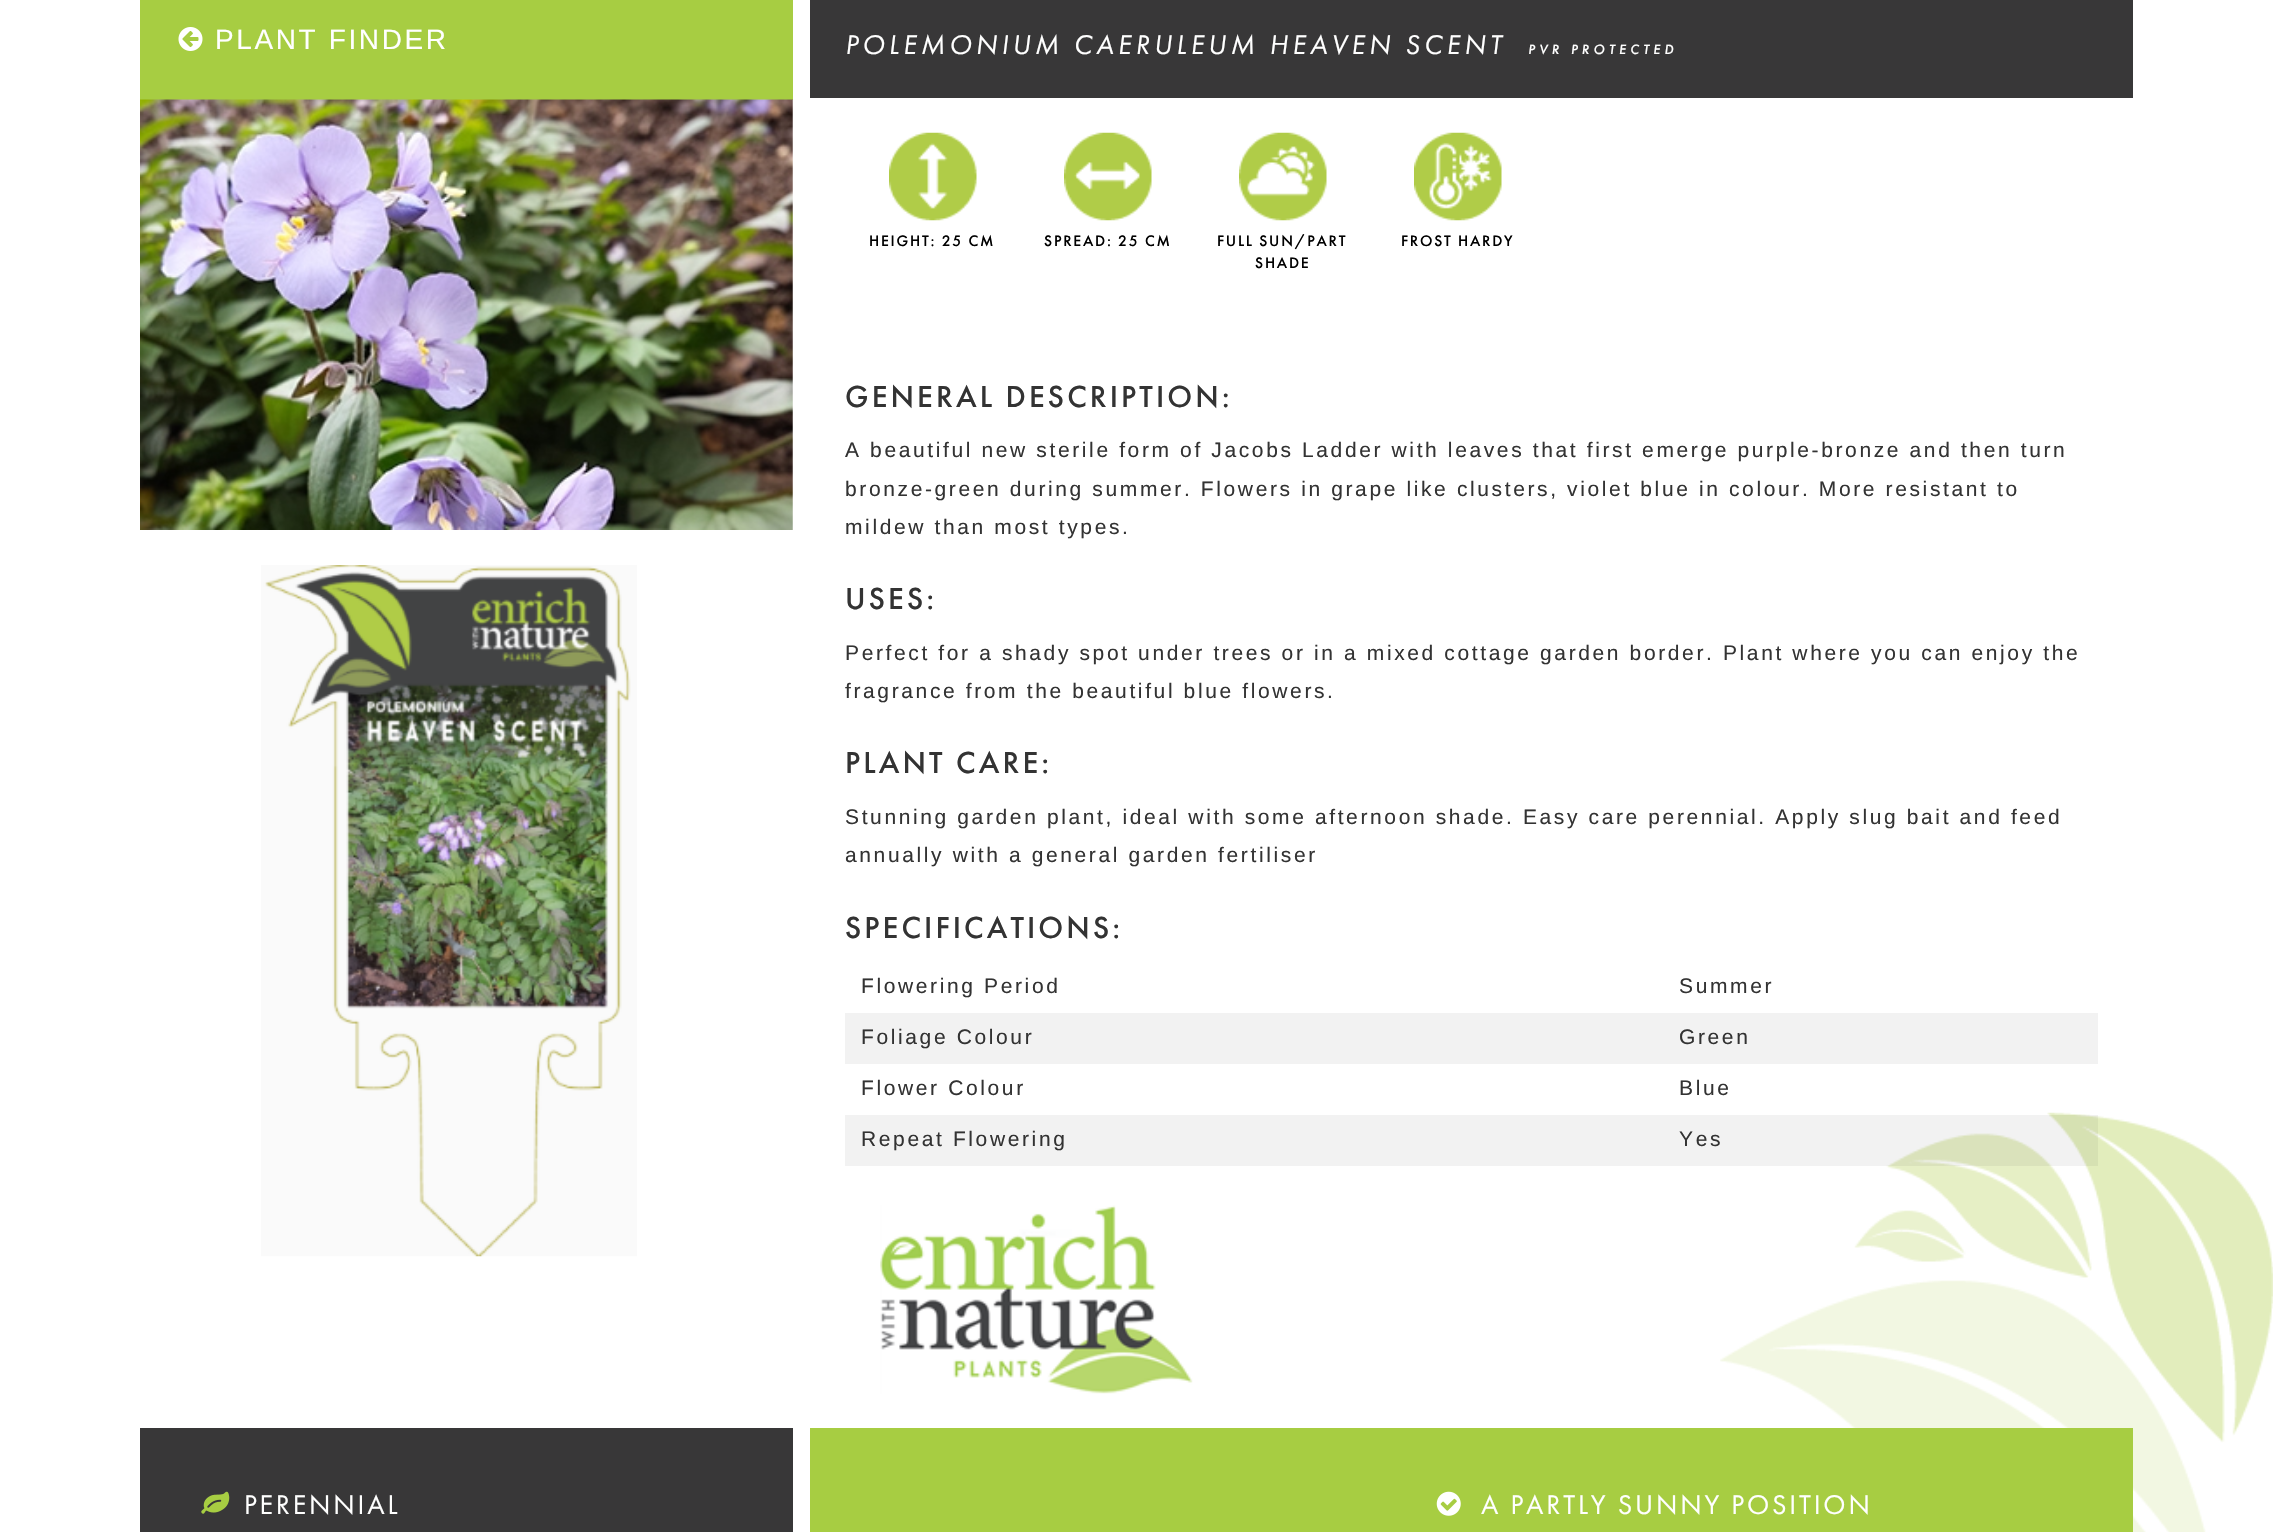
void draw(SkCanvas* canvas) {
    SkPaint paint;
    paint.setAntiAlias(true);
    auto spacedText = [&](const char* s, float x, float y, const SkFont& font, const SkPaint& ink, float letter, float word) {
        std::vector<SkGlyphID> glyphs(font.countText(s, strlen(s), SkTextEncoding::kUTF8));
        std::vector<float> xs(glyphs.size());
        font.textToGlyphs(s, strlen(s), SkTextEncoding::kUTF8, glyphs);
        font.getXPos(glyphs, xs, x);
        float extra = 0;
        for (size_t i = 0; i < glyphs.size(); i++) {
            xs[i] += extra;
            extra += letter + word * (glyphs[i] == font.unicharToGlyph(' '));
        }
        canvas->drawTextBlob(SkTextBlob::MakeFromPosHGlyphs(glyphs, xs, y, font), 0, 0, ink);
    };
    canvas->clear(0xFFFFFFFF);
    canvas->drawImageRect(SkImages::DeferredFromEncodedData(SkData::MakeFromFileName("img1.png")), SkRect::MakeXYWH(1720, 1112, 553, 420), SkSamplingOptions());
    paint.setColor(0xFFA7CD42);
    canvas->drawRect(SkRect::MakeXYWH(140, 0, 653, 100), paint);
    canvas->drawImageRect(SkImages::DeferredFromEncodedData(SkData::MakeFromFileName("img2.png")), SkRect::MakeXYWH(178, 27, 25, 24), SkSamplingOptions());
    SkFont font1(fontMgr->matchFamilyStyle("Liberation Sans", SkFontStyle::Normal()), 28);
    font1.setSubpixel(true);
    paint.setColor(0xFFFFFFFF);
    spacedText("PLANT FINDER", 215, 49, font1, paint, 2.62f, 0);
    canvas->drawImageRect(SkImages::DeferredFromEncodedData(SkData::MakeFromFileName("img3.png")), SkRect::MakeXYWH(140, 99, 653, 431), SkSamplingOptions());
    canvas->drawImageRect(SkImages::DeferredFromEncodedData(SkData::MakeFromFileName("img4.png")), SkRect::MakeXYWH(261, 565, 376, 692), SkSamplingOptions());
    paint.setColor(0xFF383738);
    canvas->drawRect(SkRect::MakeXYWH(810, 0, 1323, 98), paint);
    SkFont font2(fontMgr->matchFamilyStyle("Futura PT", SkFontStyle::Italic()), 28);
    font2.setSubpixel(true);
    paint.setColor(0xFFFFFFFF);
    spacedText("POLEMONIUM CAERULEUM HEAVEN SCENT", 845, 54, font2, paint, 4.2f, 0);
    SkFont font3(fontMgr->matchFamilyStyle("Futura PT", SkFontStyle(500, SkFontStyle::kNormal_Width, SkFontStyle::kItalic_Slant)), 14);
    font3.setSubpixel(true);
    spacedText("PVR PROTECTED", 1528, 54, font3, paint, 4.2f, 0);
    canvas->drawImageRect(SkImages::DeferredFromEncodedData(SkData::MakeFromFileName("img5.png")), SkRect::MakeXYWH(889, 132, 88, 89), SkSamplingOptions());
    SkFont font4(fontMgr->matchFamilyStyle("Futura PT", SkFontStyle(500, SkFontStyle::kNormal_Width, SkFontStyle::kUpright_Slant)), 15.75f);
    font4.setSubpixel(true);
    paint.setColor(0xFF000000);
    spacedText("HEIGHT: 25 CM", 869, 246, font4, paint, 1.75f, 0);
    canvas->drawImageRect(SkImages::DeferredFromEncodedData(SkData::MakeFromFileName("img6.png")), SkRect::MakeXYWH(1064, 132, 88, 89), SkSamplingOptions());
    spacedText("SPREAD: 25 CM", 1044, 246, font4, paint, 1.75f, 0);
    canvas->drawImageRect(SkImages::DeferredFromEncodedData(SkData::MakeFromFileName("img7.png")), SkRect::MakeXYWH(1239, 132, 88, 89), SkSamplingOptions());
    spacedText("FULL SUN/PART", 1217, 246, font4, paint, 1.75f, 0);
    spacedText("SHADE", 1255, 268, font4, paint, 1.75f, 0);
    canvas->drawImageRect(SkImages::DeferredFromEncodedData(SkData::MakeFromFileName("img8.png")), SkRect::MakeXYWH(1414, 132, 88, 89), SkSamplingOptions());
    spacedText("FROST HARDY", 1401, 246, font4, paint, 1.75f, 0);
    SkFont font5(fontMgr->matchFamilyStyle("Futura PT", SkFontStyle(500, SkFontStyle::kNormal_Width, SkFontStyle::kUpright_Slant)), 31.5f);
    font5.setSubpixel(true);
    paint.setColor(0xFF333333);
    spacedText("GENERAL DESCRIPTION:", 845, 407, font5, paint, 3.1f, 0);
    SkFont font6(fontMgr->matchFamilyStyle("Liberation Sans", SkFontStyle::Normal()), 21);
    font6.setSubpixel(true);
    spacedText("A beautiful new sterile form of Jacobs Ladder with leaves that first emerge purple-bronze and then turn", 845, 457, font6, paint, 2.62f, 0);
    spacedText("bronze-green during summer. Flowers in grape like clusters, violet blue in colour. More resistant to", 845, 496, font6, paint, 2.62f, 0);
    spacedText("mildew than most types.", 845, 534, font6, paint, 2.62f, 0);
    spacedText("USES:", 845, 609, font5, paint, 3.1f, 0);
    spacedText("Perfect for a shady spot under trees or in a mixed cottage garden border. Plant where you can enjoy the", 845, 660, font6, paint, 2.62f, 0);
    spacedText("fragrance from the beautiful blue flowers.", 845, 698, font6, paint, 2.62f, 0);
    spacedText("PLANT CARE:", 845, 773, font5, paint, 3.1f, 0);
    spacedText("Stunning garden plant, ideal with some afternoon shade. Easy care perennial. Apply slug bait and feed", 845, 824, font6, paint, 2.62f, 0);
    spacedText("annually with a general garden fertiliser", 845, 862, font6, paint, 2.62f, 0);
    spacedText("SPECIFICATIONS:", 845, 938, font5, paint, 3.1f, 0);
    spacedText("Flowering Period", 861, 993, font6, paint, 2.62f, 0);
    spacedText("Summer", 1679, 993, font6, paint, 2.62f, 0);
    paint.setColor(0xFFF2F2F2);
    canvas->drawRect(SkRect::MakeXYWH(845, 1013, 1253, 51), paint);
    paint.setColor(0xFF333333);
    spacedText("Foliage Colour", 861, 1044, font6, paint, 2.62f, 0);
    spacedText("Green", 1679, 1044, font6, paint, 2.62f, 0);
    spacedText("Flower Colour", 861, 1095, font6, paint, 2.62f, 0);
    spacedText("Blue", 1679, 1095, font6, paint, 2.62f, 0);
    paint.setColor(0x0D000000);
    canvas->drawRect(SkRect::MakeXYWH(845, 1115, 1253, 51), paint);
    paint.setColor(0xFF333333);
    spacedText("Repeat Flowering", 861, 1146, font6, paint, 2.62f, 0);
    spacedText("Yes", 1679, 1146, font6, paint, 2.62f, 0);
    canvas->drawImageRect(SkImages::DeferredFromEncodedData(SkData::MakeFromFileName("img9.png")), SkRect::MakeXYWH(880, 1205, 313, 189), SkSamplingOptions());
    paint.setColor(0xFF383738);
    canvas->drawRect(SkRect::MakeXYWH(140, 1428, 653, 104), paint);
    canvas->drawImageRect(SkImages::DeferredFromEncodedData(SkData::MakeFromFileName("img10.png")), SkRect::MakeXYWH(201, 1491, 29, 23), SkSamplingOptions());
    SkFont font7(fontMgr->matchFamilyStyle("Futura PT", SkFontStyle::Normal()), 28);
    font7.setSubpixel(true);
    paint.setColor(0xFFFFFFFF);
    spacedText("PERENNIAL", 244, 1514, font7, paint, 2.8f, 0);
    paint.setColor(0xFFA7CD42);
    canvas->drawRect(SkRect::MakeXYWH(810, 1428, 1323, 104), paint);
    canvas->drawImageRect(SkImages::DeferredFromEncodedData(SkData::MakeFromFileName("img11.png")), SkRect::MakeXYWH(1436, 1491, 25, 25), SkSamplingOptions());
    paint.setColor(0xFFFFFFFF);
    spacedText("A PARTLY SUNNY POSITION", 1481, 1514, font7, paint, 2.8f, 0);
}
